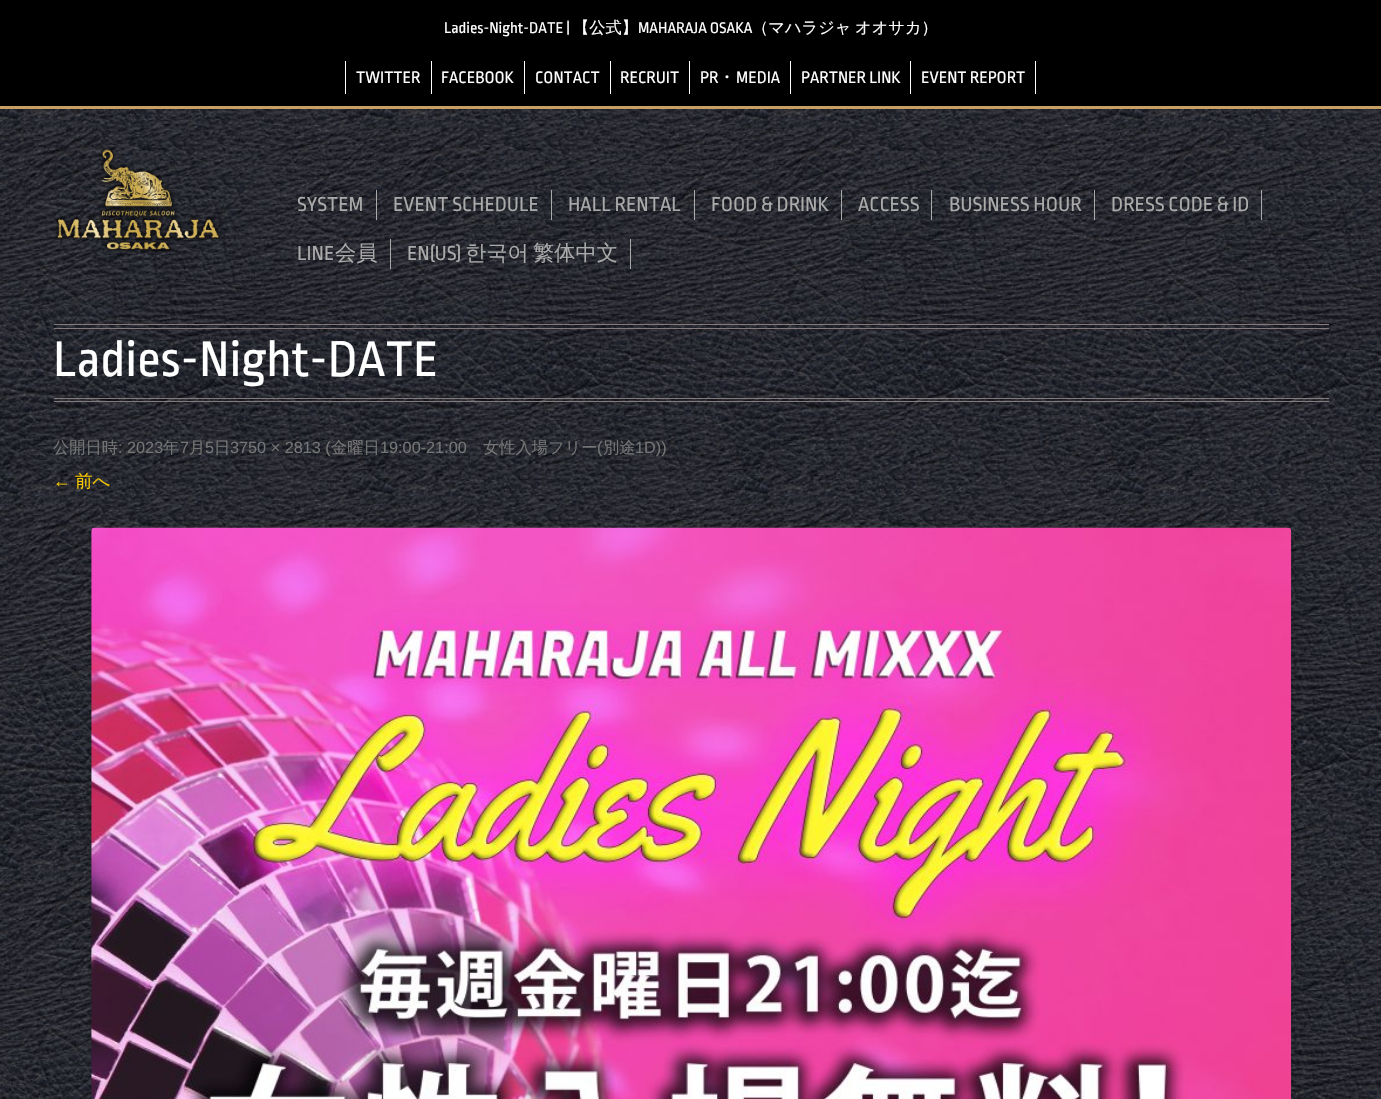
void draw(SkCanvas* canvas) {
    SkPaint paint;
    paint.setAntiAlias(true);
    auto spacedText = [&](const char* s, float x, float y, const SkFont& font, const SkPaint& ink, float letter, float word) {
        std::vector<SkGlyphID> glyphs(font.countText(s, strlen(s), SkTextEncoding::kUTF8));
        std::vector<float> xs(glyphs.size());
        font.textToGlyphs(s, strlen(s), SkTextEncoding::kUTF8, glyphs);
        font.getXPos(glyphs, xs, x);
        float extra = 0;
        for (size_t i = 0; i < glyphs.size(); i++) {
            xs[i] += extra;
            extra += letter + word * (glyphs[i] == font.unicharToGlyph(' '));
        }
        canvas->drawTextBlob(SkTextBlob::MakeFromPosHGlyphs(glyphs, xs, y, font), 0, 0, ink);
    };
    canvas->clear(0xFFFFFFFF);
    canvas->drawImageRect(SkImages::DeferredFromEncodedData(SkData::MakeFromFileName("img1.png")), SkRect::MakeXYWH(0, 109, 1381, 990), SkSamplingOptions());
    paint.setColor(0xFF000000);
    canvas->drawRect(SkRect::MakeXYWH(0, 0, 1381, 106), paint);
    paint.setColor(0xFFC79F62);
    canvas->drawRect(SkRect::MakeXYWH(0, 106, 1381, 3), paint);
    SkFont font1(fontMgr->matchFamilyStyle("Ropa Sans", SkFontStyle::Normal()), 16.25f);
    font1.setSubpixel(true);
    paint.setColor(0xFFFFFFFF);
    canvas->drawString("Ladies-Night-DATE |", 444, 33, font1, paint);
    SkFont font2(fontMgr->matchFamilyStyle("WenQuanYi Zen Hei", SkFontStyle(500, SkFontStyle::kNormal_Width, SkFontStyle::kUpright_Slant)), 16.25f);
    font2.setSubpixel(true);
    canvas->drawString("【公式】", 573, 33, font2, paint);
    canvas->drawString("MAHARAJA OSAKA", 638, 33, font1, paint);
    canvas->drawString("（マハラジャ", 752, 33, font2, paint);
    canvas->drawString("オオサカ）", 855, 33, font2, paint);
    canvas->drawRect(SkRect::MakeXYWH(431, 61, 1, 33), paint);
    canvas->drawRect(SkRect::MakeXYWH(345, 61, 1, 33), paint);
    SkFont font3(fontMgr->matchFamilyStyle("Ropa Sans", SkFontStyle::Normal()), 17.5f);
    font3.setSubpixel(true);
    canvas->drawString("TWITTER", 356, 83, font3, paint);
    canvas->drawRect(SkRect::MakeXYWH(524, 61, 1, 33), paint);
    canvas->drawString("FACEBOOK", 441, 83, font3, paint);
    canvas->drawRect(SkRect::MakeXYWH(610, 61, 1, 33), paint);
    canvas->drawString("CONTACT", 535, 83, font3, paint);
    canvas->drawRect(SkRect::MakeXYWH(689, 61, 1, 33), paint);
    canvas->drawString("RECRUIT", 620, 83, font3, paint);
    canvas->drawRect(SkRect::MakeXYWH(790, 61, 1, 33), paint);
    canvas->drawString("PR", 700, 83, font3, paint);
    SkFont font4(fontMgr->matchFamilyStyle("WenQuanYi Zen Hei", SkFontStyle(500, SkFontStyle::kNormal_Width, SkFontStyle::kUpright_Slant)), 17.5f);
    font4.setSubpixel(true);
    canvas->drawString("・", 718, 83, font4, paint);
    canvas->drawString("MEDIA", 736, 83, font3, paint);
    canvas->drawRect(SkRect::MakeXYWH(910, 61, 1, 33), paint);
    canvas->drawString("PARTNER LINK", 801, 83, font3, paint);
    canvas->drawRect(SkRect::MakeXYWH(1035, 61, 1, 33), paint);
    canvas->drawString("EVENT REPORT", 921, 83, font3, paint);
    canvas->drawImageRect(SkImages::DeferredFromEncodedData(SkData::MakeFromFileName("img2.png")), SkRect::MakeXYWH(54, 146, 168, 106), SkSamplingOptions());
    paint.setColor(0xFFAAAAAA);
    canvas->drawRect(SkRect::MakeXYWH(376, 190, 1, 30), paint);
    SkFont font5(fontMgr->matchFamilyStyle("Ropa Sans", SkFontStyle::Normal()), 21.25f);
    font5.setSubpixel(true);
    canvas->drawString("SYSTEM", 297, 211, font5, paint);
    canvas->drawRect(SkRect::MakeXYWH(551, 190, 1, 30), paint);
    canvas->drawString("EVENT SCHEDULE", 393, 211, font5, paint);
    canvas->drawRect(SkRect::MakeXYWH(694, 190, 1, 30), paint);
    canvas->drawString("HALL RENTAL", 568, 211, font5, paint);
    canvas->drawRect(SkRect::MakeXYWH(841, 190, 1, 30), paint);
    canvas->drawString("FOOD & DRINK", 711, 211, font5, paint);
    canvas->drawRect(SkRect::MakeXYWH(931, 190, 1, 30), paint);
    canvas->drawString("ACCESS", 858, 211, font5, paint);
    canvas->drawRect(SkRect::MakeXYWH(1094, 190, 1, 30), paint);
    canvas->drawString("BUSINESS HOUR", 949, 211, font5, paint);
    canvas->drawRect(SkRect::MakeXYWH(1261, 190, 1, 30), paint);
    canvas->drawString("DRESS CODE & ID", 1111, 211, font5, paint);
    canvas->drawRect(SkRect::MakeXYWH(390, 239, 1, 30), paint);
    canvas->drawString("LINE", 297, 260, font5, paint);
    SkFont font6(fontMgr->matchFamilyStyle("WenQuanYi Zen Hei", SkFontStyle(500, SkFontStyle::kNormal_Width, SkFontStyle::kUpright_Slant)), 21.25f);
    font6.setSubpixel(true);
    canvas->drawString("会員", 335, 260, font6, paint);
    canvas->drawRect(SkRect::MakeXYWH(630, 239, 1, 30), paint);
    canvas->drawString("EN(US)", 407, 260, font5, paint);
    spacedText("한국어 繁体中文", 465, 260, font6, paint, 0, -2);
    paint.setColor(0xFF867979);
    canvas->drawRect(SkRect::MakeXYWH(54, 324, 1275, 1), paint);
    canvas->drawRect(SkRect::MakeXYWH(54, 328, 1275, 1), paint);
    canvas->drawRect(SkRect::MakeXYWH(54, 398, 1275, 1), paint);
    canvas->drawRect(SkRect::MakeXYWH(54, 401, 1275, 1), paint);
    SkFont font7(fontMgr->matchFamilyStyle("Ropa Sans", SkFontStyle::Normal()), 52.5f);
    font7.setSubpixel(true);
    paint.setColor(0xFFFFFFFF);
    canvas->drawString("Ladies-Night-DATE", 53, 376, font7, paint);
    paint.setColor(0xFF757575);
    canvas->drawString("公開日時", 53, 453, font2, paint);
    SkFont font8(fontMgr->matchFamilyStyle("Liberation Sans", SkFontStyle::Normal()), 16.25f);
    font8.setSubpixel(true);
    canvas->drawString(": 2023", 118, 453, font8, paint);
    canvas->drawString("年", 163, 453, font2, paint);
    canvas->drawString("7", 180, 453, font8, paint);
    canvas->drawString("月", 189, 453, font2, paint);
    canvas->drawString("5", 205, 453, font8, paint);
    canvas->drawString("日", 214, 453, font2, paint);
    canvas->drawString("3750 × 2813 (", 230, 453, font8, paint);
    canvas->drawString("金曜日", 331, 453, font2, paint);
    canvas->drawString("19:00-21:00", 380, 453, font8, paint);
    canvas->drawString("女性入場フリー", 483, 453, font2, paint);
    canvas->drawString("(", 597, 453, font8, paint);
    canvas->drawString("別途", 603, 453, font2, paint);
    canvas->drawString("1D))", 635, 453, font8, paint);
    SkFont font9(fontMgr->matchFamilyStyle("Liberation Sans", SkFontStyle::Normal()), 17.5f);
    font9.setSubpixel(true);
    paint.setColor(0xFFF3C600);
    canvas->drawString("←", 53, 487, font9, paint);
    canvas->drawString("前へ", 75, 487, font4, paint);
    paint.setColor(0x33000000);
    paint.setMaskFilter(SkMaskFilter::MakeBlur(kNormal_SkBlurStyle, 2.5f));
    canvas->drawRoundRect(SkRect::MakeXYWH(91, 529, 1200, 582), 4, 4, paint);
    paint.setMaskFilter(nullptr);
    canvas->drawImageRect(SkImages::DeferredFromEncodedData(SkData::MakeFromFileName("img3.png")), SkRect::MakeXYWH(91, 527, 1201, 572), SkSamplingOptions());
}
